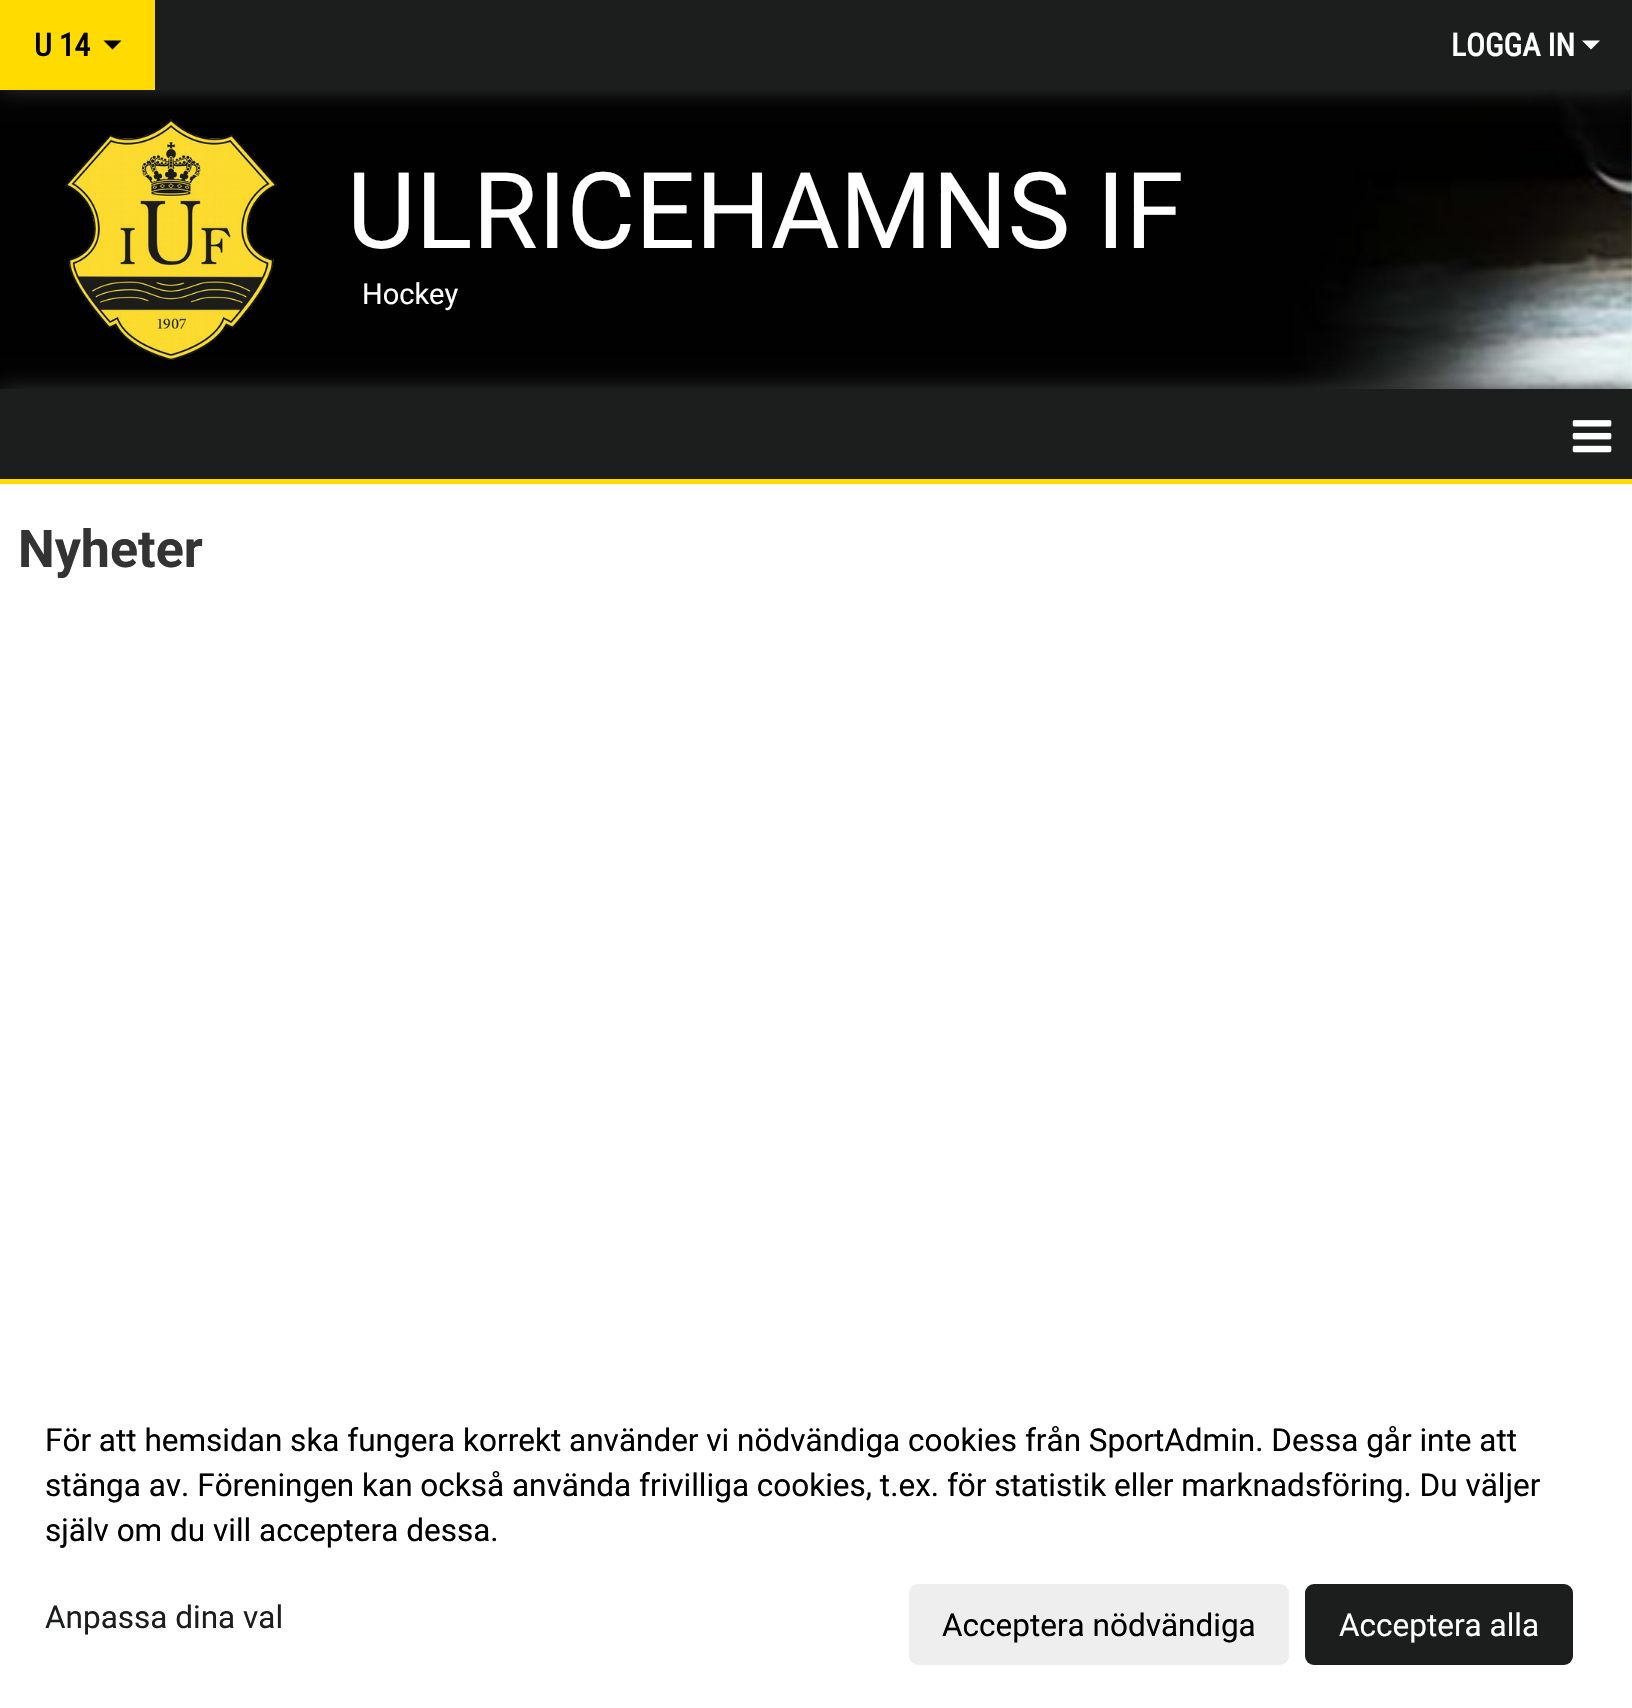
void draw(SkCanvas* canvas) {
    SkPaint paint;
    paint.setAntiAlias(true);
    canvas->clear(0xFFFFFFFF);
    canvas->drawImageRect(SkImages::DeferredFromEncodedData(SkData::MakeFromFileName("img1.png")), SkRect::MakeXYWH(0, 90, 1632, 299), SkSamplingOptions());
    paint.setColor(0xFF333333);
    paint.setMaskFilter(SkMaskFilter::MakeBlur(kNormal_SkBlurStyle, 11));
    canvas->drawRect(SkRect::MakeXYWH(0, 0, 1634, 90), paint);
    paint.setMaskFilter(nullptr);
    paint.setColor(0xFF1C1E1D);
    canvas->drawRect(SkRect::MakeXYWH(155, 0, 1477, 90), paint);
    paint.setColor(0xFFFFDB00);
    canvas->drawRect(SkRect::MakeXYWH(0, 0, 155, 90), paint);
    SkFont font1(fontMgr->matchFamilyStyle("Roboto Condensed", SkFontStyle::Bold()), 31.5f);
    font1.setSubpixel(true);
    paint.setColor(0xFF000000);
    canvas->drawString("U 14", 34, 56, font1, paint);
    canvas->drawPath(SkPathBuilder().moveTo(103.5f, 40.5f).lineTo(121.5f, 40.5f).lineTo(112.5f, 49.5f).close().detach(), paint);
    paint.setColor(0xFFFFFFFF);
    canvas->drawString("LOGGA IN", 1451, 56, font1, paint);
    canvas->drawPath(SkPathBuilder().moveTo(1582, 40.5f).lineTo(1600, 40.5f).lineTo(1591, 49.5f).close().detach(), paint);
    paint.setColor(0xFF333333);
    paint.setMaskFilter(SkMaskFilter::MakeBlur(kNormal_SkBlurStyle, 11));
    canvas->drawRect(SkRect::MakeXYWH(0, 389, 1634, 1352), paint);
    paint.setMaskFilter(nullptr);
    canvas->drawImageRect(SkImages::DeferredFromEncodedData(SkData::MakeFromFileName("img2.png")), SkRect::MakeXYWH(65, 119, 212, 241), SkSamplingOptions());
    SkFont font2(fontMgr->matchFamilyStyle("Roboto", SkFontStyle::Normal()), 105.75f);
    font2.setSubpixel(true);
    paint.setColor(0xFFFFFFFF);
    canvas->drawString("ULRICEHAMNS IF", 347, 248, font2, paint);
    SkFont font3(fontMgr->matchFamilyStyle("Roboto", SkFontStyle::Normal()), 29);
    font3.setSubpixel(true);
    canvas->drawString("Hockey", 362, 304, font3, paint);
    canvas->drawRect(SkRect::MakeXYWH(0, 484, 1632, 1224), paint);
    paint.setColor(0xFF1C1E1D);
    canvas->drawRect(SkRect::MakeXYWH(0, 389, 1632, 90), paint);
    paint.setColor(0xFFFFDB00);
    canvas->drawRect(SkRect::MakeXYWH(0, 479, 1632, 5), paint);
    canvas->drawImageRect(SkImages::DeferredFromEncodedData(SkData::MakeFromFileName("img3.png")), SkRect::MakeXYWH(1572, 420, 40, 33), SkSamplingOptions());
    SkFont font4(fontMgr->matchFamilyStyle("Roboto", SkFontStyle::Bold()), 52);
    font4.setSubpixel(true);
    paint.setColor(0xFF333333);
    canvas->drawString("Nyheter", 18, 567, font4, paint);
    SkFont font5(fontMgr->matchFamilyStyle("Roboto", SkFontStyle::Normal()), 31.5f);
    font5.setSubpixel(true);
    paint.setColor(0xFF000000);
    canvas->drawString("För att hemsidan ska fungera korrekt använder vi nödvändiga cookies från SportAdmin. Dessa går inte att", 45, 1451, font5, paint);
    canvas->drawString("stänga av. Föreningen kan också använda frivilliga cookies, t.ex. för statistik eller marknadsföring. Du väljer", 45, 1496, font5, paint);
    canvas->drawString("själv om du vill acceptera dessa.", 45, 1541, font5, paint);
    paint.setColor(0xFF1C1E1D);
    canvas->drawString("Anpassa dina val", 45, 1628, font5, paint);
    paint.setColor(0xFFEEEEEE);
    canvas->drawRoundRect(SkRect::MakeXYWH(909, 1584, 380, 81), 9, 9, paint);
    paint.setColor(0xFF000000);
    canvas->drawString("Acceptera nödvändiga", 942, 1636, font5, paint);
    paint.setColor(0xFF1C1E1D);
    canvas->drawRoundRect(SkRect::MakeXYWH(1305, 1584, 268, 81), 9, 9, paint);
    paint.setColor(0xFFFFFFFF);
    canvas->drawString("Acceptera alla", 1339, 1636, font5, paint);
}
